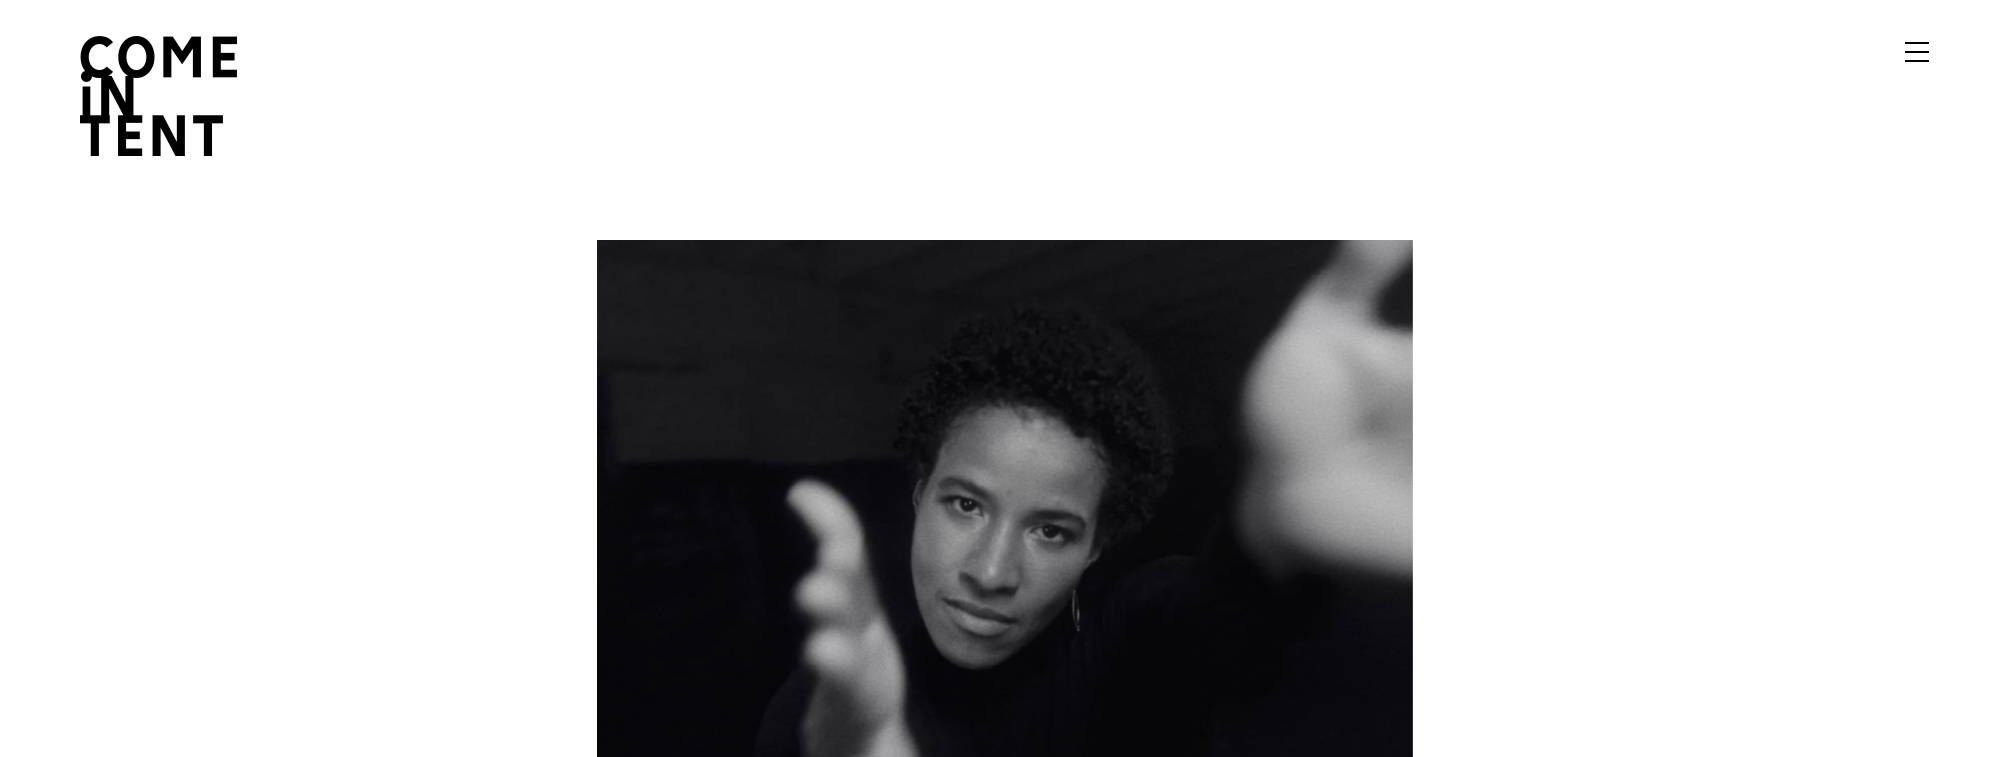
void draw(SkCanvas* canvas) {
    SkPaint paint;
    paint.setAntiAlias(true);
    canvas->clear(0xFFFFFFFF);
    canvas->drawImageRect(SkImages::DeferredFromEncodedData(SkData::MakeFromFileName("img1.png")), SkRect::MakeXYWH(80, 36, 157, 120), SkSamplingOptions());
    paint.setColor(0xFF000000);
    canvas->drawRect(SkRect::MakeXYWH(1905, 42, 24, 2), paint);
    canvas->drawRect(SkRect::MakeXYWH(1905, 51, 24, 2), paint);
    canvas->drawRect(SkRect::MakeXYWH(1905, 60, 24, 2), paint);
    canvas->drawImageRect(SkImages::DeferredFromEncodedData(SkData::MakeFromFileName("img2.png")), SkRect::MakeXYWH(597, 240, 816, 517), SkSamplingOptions());
}
